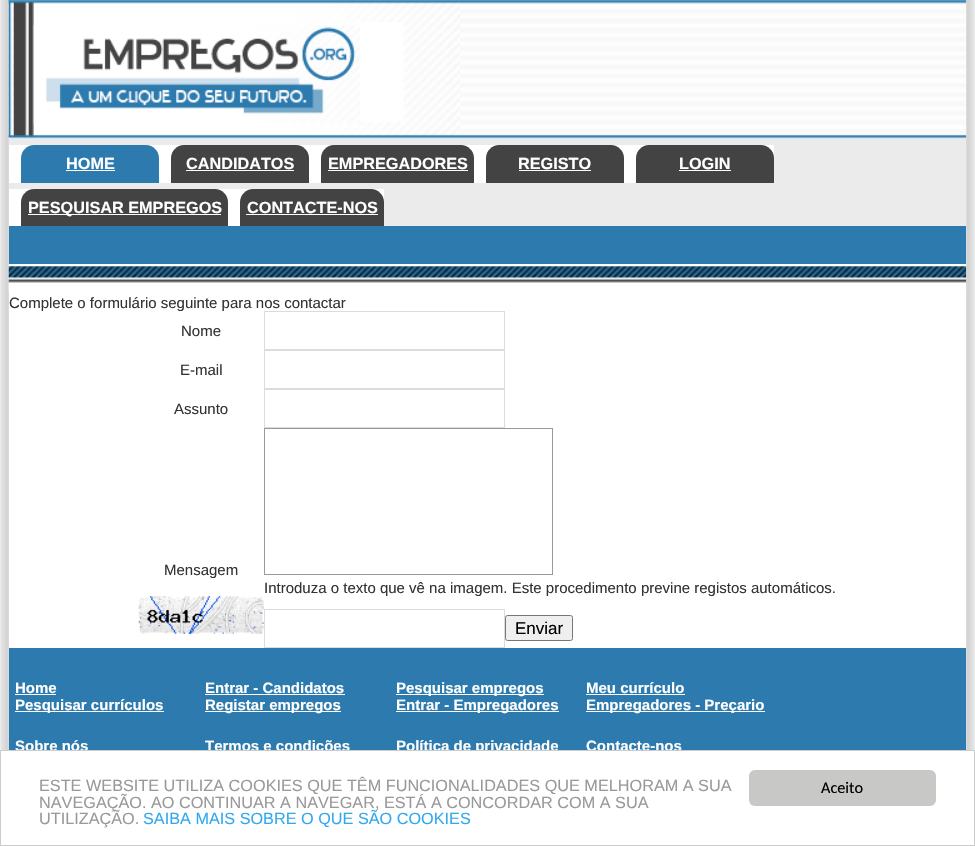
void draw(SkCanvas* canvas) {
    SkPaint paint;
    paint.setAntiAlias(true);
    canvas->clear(0xFFEBEBEB);
    canvas->drawImageRect(SkImages::DeferredFromEncodedData(SkData::MakeFromFileName("img1.png")), SkRect::MakeXYWH(1, 0, 8, 750), SkSamplingOptions());
    canvas->drawImageRect(SkImages::DeferredFromEncodedData(SkData::MakeFromFileName("img2.png")), SkRect::MakeXYWH(8, 0, 959, 139), SkSamplingOptions());
    canvas->drawImageRect(SkImages::DeferredFromEncodedData(SkData::MakeFromFileName("img3.png")), SkRect::MakeXYWH(8, 0, 452, 139), SkSamplingOptions());
    canvas->drawImageRect(SkImages::DeferredFromEncodedData(SkData::MakeFromFileName("img4.png")), SkRect::MakeXYWH(33, 25, 327, 99), SkSamplingOptions());
    paint.setColor(0xFFFFFFFF);
    canvas->drawRect(SkRect::MakeXYWH(9, 145, 765, 38), paint);
    paint.setColor(0xFF2D7BAE);
    canvas->drawPath(SkPathBuilder().moveTo(34, 145).lineTo(146, 145).cubicTo(153, 145, 159, 151, 159, 158).lineTo(159, 183).lineTo(21, 183).lineTo(21, 158).cubicTo(21, 151, 27, 145, 34, 145).close().detach(), paint);
    SkFont font1(fontMgr->matchFamilyStyle("Liberation Sans", SkFontStyle::Bold()), 16.25f);
    font1.setSubpixel(true);
    paint.setColor(0xFFFFFFFF);
    canvas->drawString("HOME", 66, 169, font1, paint);
    canvas->drawRect(SkRect::MakeXYWH(66, 170, 49, 1), paint);
    paint.setColor(0xFF434343);
    canvas->drawPath(SkPathBuilder().moveTo(184, 145).lineTo(296, 145).cubicTo(303, 145, 309, 151, 309, 158).lineTo(309, 183).lineTo(171, 183).lineTo(171, 158).cubicTo(171, 151, 177, 145, 184, 145).close().detach(), paint);
    paint.setColor(0xFFFFFFFF);
    canvas->drawString("CANDIDATOS", 186, 169, font1, paint);
    canvas->drawRect(SkRect::MakeXYWH(186, 170, 108, 1), paint);
    paint.setColor(0xFF434343);
    canvas->drawPath(SkPathBuilder().moveTo(334, 145).lineTo(461, 145).cubicTo(468, 145, 474, 151, 474, 158).lineTo(474, 183).lineTo(321, 183).lineTo(321, 158).cubicTo(321, 151, 327, 145, 334, 145).close().detach(), paint);
    paint.setColor(0xFFFFFFFF);
    canvas->drawString("EMPREGADORES", 328, 169, font1, paint);
    canvas->drawRect(SkRect::MakeXYWH(328, 170, 140, 1), paint);
    paint.setColor(0xFF434343);
    canvas->drawPath(SkPathBuilder().moveTo(499, 145).lineTo(611, 145).cubicTo(618, 145, 624, 151, 624, 158).lineTo(624, 183).lineTo(486, 183).lineTo(486, 158).cubicTo(486, 151, 492, 145, 499, 145).close().detach(), paint);
    paint.setColor(0xFFFFFFFF);
    canvas->drawString("REGISTO", 518, 169, font1, paint);
    canvas->drawRect(SkRect::MakeXYWH(519, 170, 72, 1), paint);
    paint.setColor(0xFF434343);
    canvas->drawPath(SkPathBuilder().moveTo(649, 145).lineTo(761, 145).cubicTo(768, 145, 774, 151, 774, 158).lineTo(774, 183).lineTo(636, 183).lineTo(636, 158).cubicTo(636, 151, 642, 145, 649, 145).close().detach(), paint);
    paint.setColor(0xFFFFFFFF);
    canvas->drawString("LOGIN", 679, 169, font1, paint);
    canvas->drawRect(SkRect::MakeXYWH(679, 170, 52, 1), paint);
    canvas->drawRect(SkRect::MakeXYWH(9, 189, 375, 37), paint);
    paint.setColor(0xFF434343);
    canvas->drawPath(SkPathBuilder().moveTo(34, 189).lineTo(215, 189).cubicTo(222, 189, 228, 195, 228, 202).lineTo(228, 226).lineTo(21, 226).lineTo(21, 202).cubicTo(21, 195, 27, 189, 34, 189).close().detach(), paint);
    paint.setColor(0xFFFFFFFF);
    canvas->drawRect(SkRect::MakeXYWH(28, 214, 193, 1), paint);
    canvas->drawString("PESQUISAR EMPREGOS", 28, 213, font1, paint);
    paint.setColor(0xFF434343);
    canvas->drawPath(SkPathBuilder().moveTo(253, 189).lineTo(371, 189).cubicTo(378, 189, 384, 195, 384, 202).lineTo(384, 226).lineTo(240, 226).lineTo(240, 202).cubicTo(240, 195, 246, 189, 253, 189).close().detach(), paint);
    paint.setColor(0xFFFFFFFF);
    canvas->drawString("CONTACTE-NOS", 247, 213, font1, paint);
    canvas->drawRect(SkRect::MakeXYWH(246, 214, 132, 1), paint);
    canvas->drawImageRect(SkImages::DeferredFromEncodedData(SkData::MakeFromFileName("img5.png")), SkRect::MakeXYWH(8, 263, 959, 29), SkSamplingOptions());
    paint.setColor(0xFF2D7BAE);
    canvas->drawRect(SkRect::MakeXYWH(9, 226, 957, 38), paint);
    paint.setColor(0xFFFFFFFF);
    canvas->drawRect(SkRect::MakeXYWH(9, 291, 957, 357), paint);
    SkFont font2(fontMgr->matchFamilyStyle("Liberation Sans", SkFontStyle::Normal()), 15);
    font2.setSubpixel(true);
    paint.setColor(0xFF333333);
    canvas->drawString("Complete o formulário seguinte para nos contactar", 9, 308, font2, paint);
    canvas->drawString("Nome", 181, 336, font2, paint);
    paint.setStyle(SkPaint::kStroke_Style);
    paint.setStrokeWidth(1);
    paint.setColor(0xFFDCDCDC);
    canvas->drawRect(SkRect::MakeXYWH(264.5f, 311.5f, 240, 38), paint);
    paint.setStyle(SkPaint::kFill_Style);
    paint.setColor(0xFF333333);
    canvas->drawString("E-mail", 180, 375, font2, paint);
    paint.setStyle(SkPaint::kStroke_Style);
    paint.setColor(0xFFDCDCDC);
    canvas->drawRect(SkRect::MakeXYWH(264.5f, 350.5f, 240, 38), paint);
    paint.setStyle(SkPaint::kFill_Style);
    paint.setColor(0xFF333333);
    canvas->drawString("Assunto", 174, 414, font2, paint);
    paint.setStyle(SkPaint::kStroke_Style);
    paint.setColor(0xFFDCDCDC);
    canvas->drawRect(SkRect::MakeXYWH(264.5f, 389.5f, 240, 38), paint);
    paint.setStyle(SkPaint::kFill_Style);
    paint.setColor(0xFF333333);
    canvas->drawString("Mensagem", 164, 575, font2, paint);
    paint.setStyle(SkPaint::kStroke_Style);
    paint.setColor(0xFF999999);
    canvas->drawRect(SkRect::MakeXYWH(264.5f, 428.5f, 288, 146), paint);
    paint.setStyle(SkPaint::kFill_Style);
    paint.setColor(0xFF333333);
    canvas->drawString("Introduza o texto que vê na imagem. Este procedimento previne registos automáticos.", 264, 593, font2, paint);
    canvas->drawImageRect(SkImages::DeferredFromEncodedData(SkData::MakeFromFileName("img6.png")), SkRect::MakeXYWH(138, 596, 126, 38), SkSamplingOptions());
    paint.setStyle(SkPaint::kStroke_Style);
    paint.setColor(0xFFDCDCDC);
    canvas->drawRect(SkRect::MakeXYWH(264.5f, 609.5f, 240, 38), paint);
    paint.setStyle(SkPaint::kFill_Style);
    paint.setColor(0xFFEFEFEF);
    canvas->drawRoundRect(SkRect::MakeXYWH(505.5f, 615.5f, 67, 25), 2, 2, paint);
    paint.setStyle(SkPaint::kStroke_Style);
    paint.setColor(0xFF767676);
    canvas->drawRoundRect(SkRect::MakeXYWH(505.5f, 615.5f, 67, 25), 2, 2, paint);
    SkFont font3(fontMgr->matchFamilyStyle("Liberation Sans", SkFontStyle::Normal()), 17);
    font3.setSubpixel(true);
    paint.setStyle(SkPaint::kFill_Style);
    paint.setColor(0xFF000000);
    canvas->drawString("Enviar", 515, 634, font3, paint);
    paint.setColor(0xFF2D7BAE);
    canvas->drawRect(SkRect::MakeXYWH(9, 648, 957, 102), paint);
    SkFont font4(fontMgr->matchFamilyStyle("Liberation Sans", SkFontStyle::Bold()), 15);
    font4.setSubpixel(true);
    paint.setColor(0xFFFFFFFF);
    canvas->drawString("Home", 15, 693, font4, paint);
    canvas->drawRect(SkRect::MakeXYWH(15, 694, 41, 1), paint);
    canvas->drawString("Entrar - Candidatos", 205, 693, font4, paint);
    canvas->drawRect(SkRect::MakeXYWH(205, 694, 140, 1), paint);
    canvas->drawRect(SkRect::MakeXYWH(396, 694, 148, 1), paint);
    canvas->drawString("Pesquisar empregos", 396, 693, font4, paint);
    canvas->drawString("Meu currículo", 586, 693, font4, paint);
    canvas->drawRect(SkRect::MakeXYWH(586, 694, 99, 1), paint);
    canvas->drawRect(SkRect::MakeXYWH(15, 711, 149, 1), paint);
    canvas->drawString("Pesquisar currículos", 15, 710, font4, paint);
    canvas->drawRect(SkRect::MakeXYWH(205, 711, 136, 1), paint);
    canvas->drawString("Registar empregos", 205, 710, font4, paint);
    canvas->drawRect(SkRect::MakeXYWH(396, 711, 163, 1), paint);
    canvas->drawString("Entrar - Empregadores", 396, 710, font4, paint);
    canvas->drawRect(SkRect::MakeXYWH(586, 711, 179, 1), paint);
    canvas->drawString("Empregadores - Preçario", 586, 710, font4, paint);
    canvas->drawString("Sobre nós", 15, 751, font4, paint);
    canvas->drawString("Termos e condições", 205, 751, font4, paint);
    canvas->drawString("Política de privacidade", 396, 751, font4, paint);
    canvas->drawString("Contacte-nos", 586, 751, font4, paint);
    canvas->drawImageRect(SkImages::DeferredFromEncodedData(SkData::MakeFromFileName("img7.png")), SkRect::MakeXYWH(966, 0, 8, 750), SkSamplingOptions());
    canvas->drawRect(SkRect::MakeXYWH(0.5f, 750.5f, 974, 95), paint);
    paint.setStyle(SkPaint::kStroke_Style);
    paint.setColor(0xFFCCCCCC);
    canvas->drawRect(SkRect::MakeXYWH(0.5f, 750.5f, 974, 95), paint);
    SkFont font5(fontMgr->matchFamilyStyle("Liberation Sans", SkFontStyle::Normal()), 16.25f);
    font5.setSubpixel(true);
    paint.setStyle(SkPaint::kFill_Style);
    paint.setColor(0xFF999999);
    canvas->drawString("ESTE WEBSITE UTILIZA COOKIES QUE TÊM FUNCIONALIDADES QUE MELHORAM A SUA", 39, 791, font5, paint);
    canvas->drawString("NAVEGAÇÃO. AO CONTINUAR A NAVEGAR, ESTÁ A CONCORDAR COM A SUA", 39, 808, font5, paint);
    canvas->drawString("UTILIZAÇÃO.", 39, 824, font5, paint);
    paint.setColor(0xFF31A8F0);
    canvas->drawString("SAIBA MAIS SOBRE O QUE SÃO COOKIES", 143, 824, font5, paint);
    paint.setColor(0xFFC8C8C6);
    canvas->drawRoundRect(SkRect::MakeXYWH(749, 770, 187, 36), 6, 6, paint);
    SkFont font6(fontMgr->matchFamilyStyle("Carlito", SkFontStyle::Normal()), 16.25f);
    font6.setSubpixel(true);
    paint.setColor(0xFF000000);
    canvas->drawString("Aceito", 821, 793, font6, paint);
}
